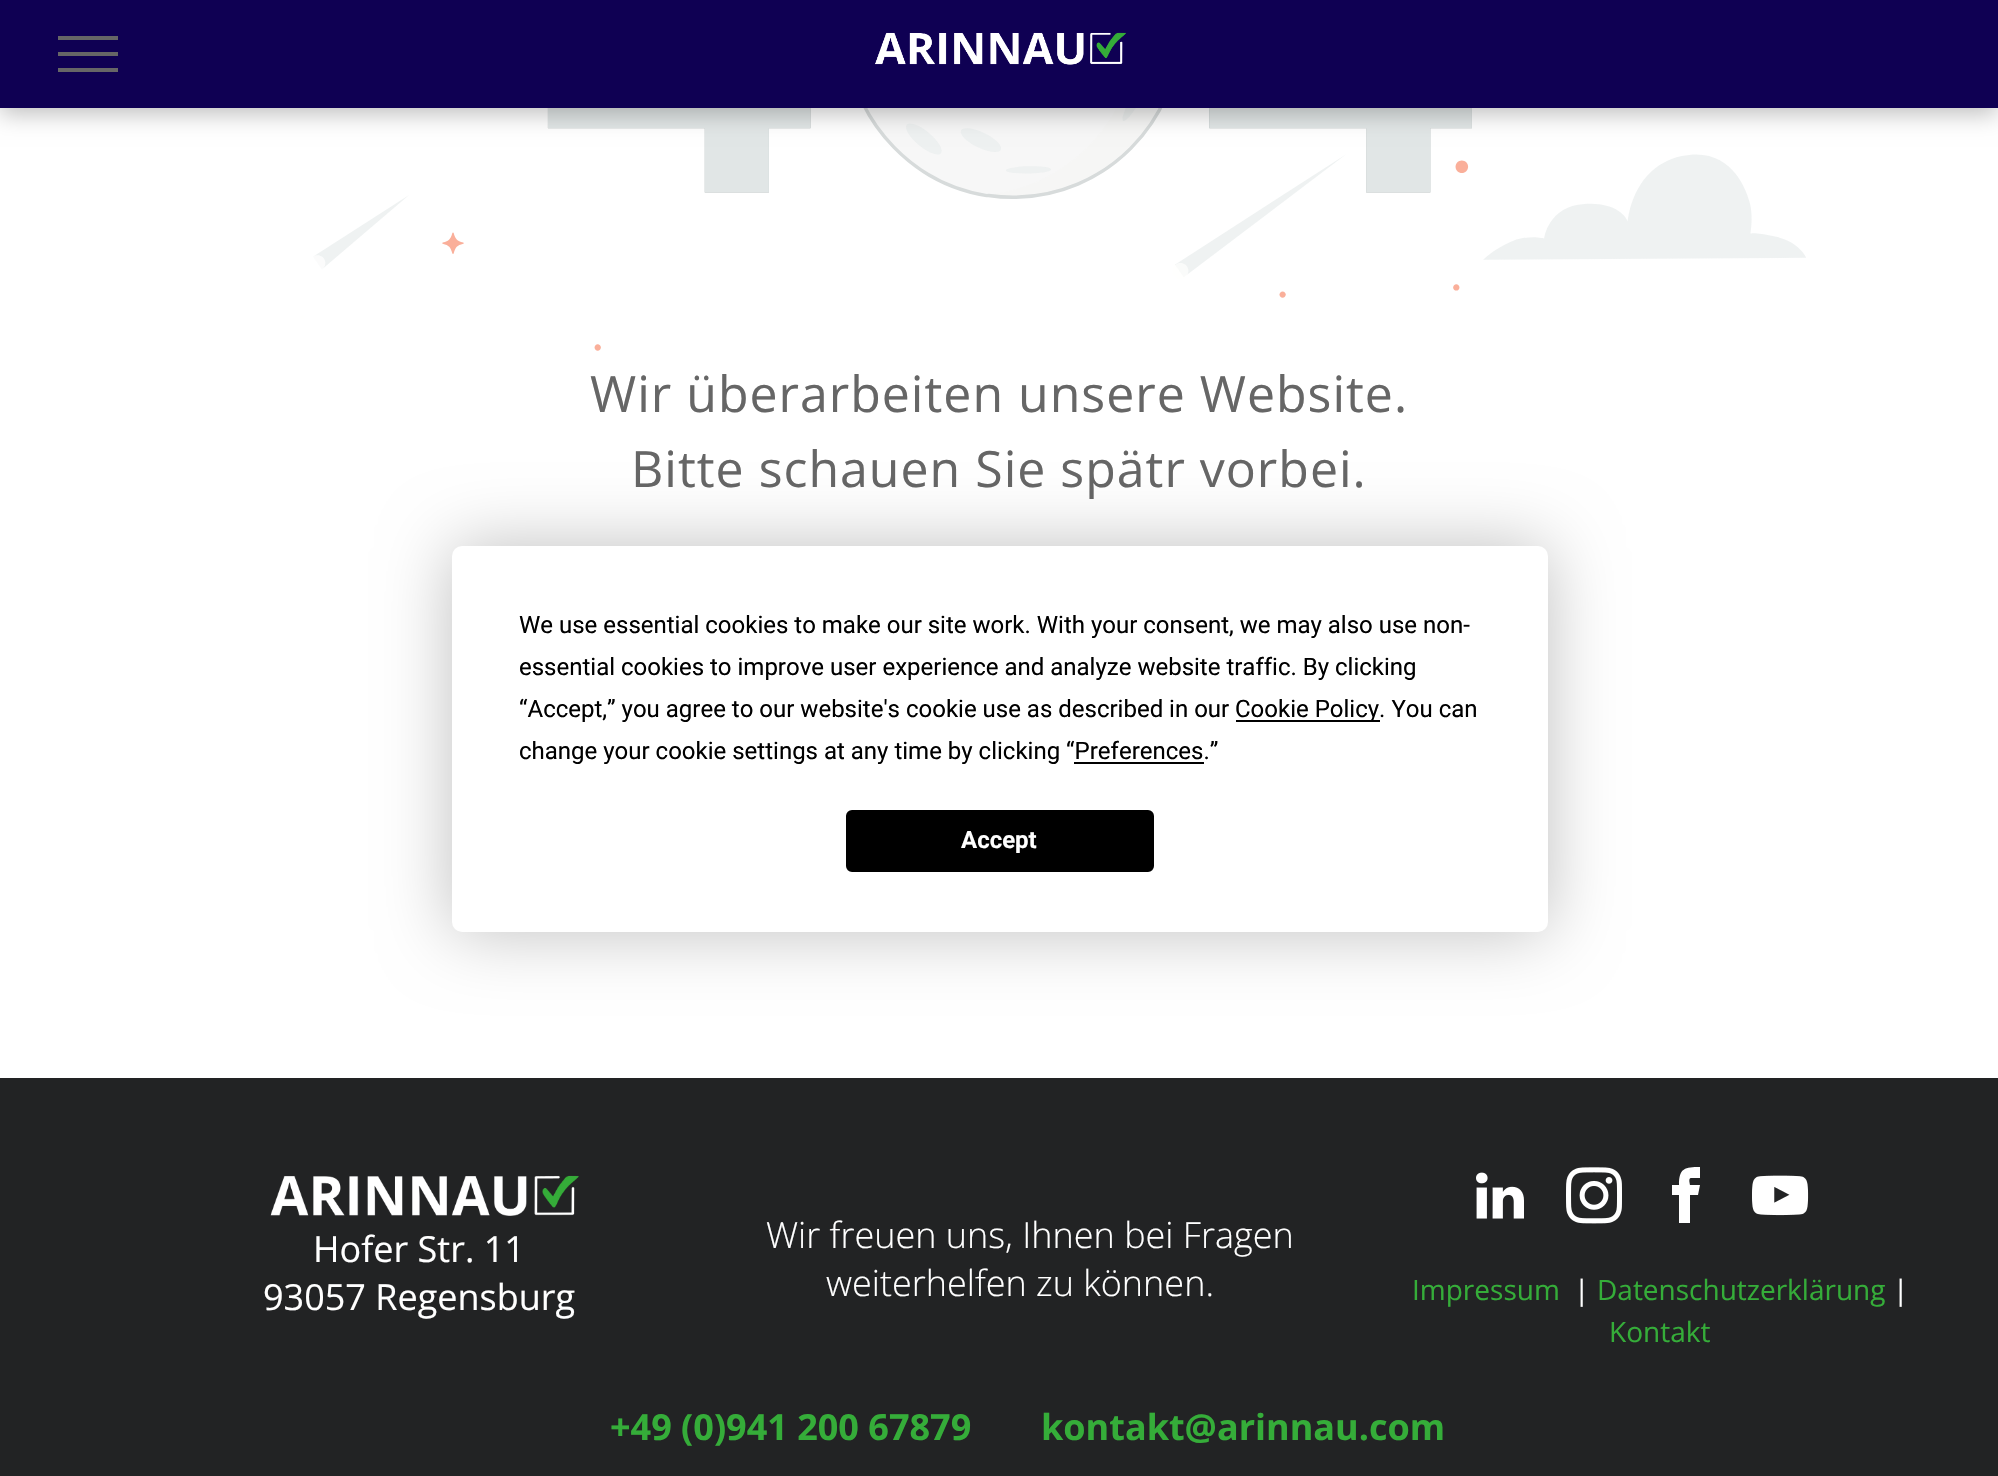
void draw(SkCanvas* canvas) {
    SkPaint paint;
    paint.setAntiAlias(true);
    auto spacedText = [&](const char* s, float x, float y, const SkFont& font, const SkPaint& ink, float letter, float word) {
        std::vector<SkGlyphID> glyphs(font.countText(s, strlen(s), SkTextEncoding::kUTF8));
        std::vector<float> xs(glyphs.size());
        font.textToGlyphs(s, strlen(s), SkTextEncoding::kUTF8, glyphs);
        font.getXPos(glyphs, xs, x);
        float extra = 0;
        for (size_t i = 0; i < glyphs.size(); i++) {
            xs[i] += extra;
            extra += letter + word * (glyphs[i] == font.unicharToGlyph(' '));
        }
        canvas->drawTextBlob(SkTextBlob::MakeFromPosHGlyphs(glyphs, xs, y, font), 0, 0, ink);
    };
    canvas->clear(0xFFFFFFFF);
    canvas->drawImageRect(SkImages::DeferredFromEncodedData(SkData::MakeFromFileName("img2.png")), SkRect::MakeXYWH(299, 108, 1507, 243), SkSamplingOptions());
    paint.setColor(0x40000000);
    paint.setMaskFilter(SkMaskFilter::MakeBlur(kNormal_SkBlurStyle, 11));
    canvas->drawRect(SkRect::MakeXYWH(0, 6, 1998, 108), paint);
    paint.setMaskFilter(nullptr);
    paint.setColor(0xFF0F0053);
    canvas->drawRect(SkRect::MakeXYWH(0, 0, 1998, 108), paint);
    canvas->drawImageRect(SkImages::DeferredFromEncodedData(SkData::MakeFromFileName("img1.png")), SkRect::MakeXYWH(875, 32, 251, 33), SkSamplingOptions());
    paint.setColor(0xFF666666);
    canvas->drawRect(SkRect::MakeXYWH(58, 36, 60, 4), paint);
    canvas->drawRect(SkRect::MakeXYWH(58, 52, 60, 4), paint);
    canvas->drawRect(SkRect::MakeXYWH(58, 68, 60, 4), paint);
    SkFont font1(fontMgr->matchFamilyStyle("Open Sans", SkFontStyle::Normal()), 50);
    font1.setSubpixel(true);
    spacedText("Wir überarbeiten unsere Website.", 590, 412, font1, paint, 1, 0);
    spacedText("Bitte schauen Sie spätr vorbei.", 631, 487, font1, paint, 1, 0);
    paint.setColor(0xFF222324);
    canvas->drawRect(SkRect::MakeXYWH(0, 1078, 1998, 398), paint);
    canvas->drawImageRect(SkImages::DeferredFromEncodedData(SkData::MakeFromFileName("img3.png")), SkRect::MakeXYWH(270, 1175, 309, 41), SkSamplingOptions());
    SkFont font2(fontMgr->matchFamilyStyle("Open Sans", SkFontStyle::Normal()), 36);
    font2.setSubpixel(true);
    paint.setColor(0xFFFFFFFF);
    canvas->drawString("Hofer Str. 11", 313, 1262, font2, paint);
    canvas->drawString("93057 Regensburg", 263, 1310, font2, paint);
    SkFont font3(fontMgr->matchFamilyStyle("Open Sans", SkFontStyle(300, SkFontStyle::kNormal_Width, SkFontStyle::kUpright_Slant)), 36);
    font3.setSubpixel(true);
    canvas->drawString("Wir freuen uns, Ihnen bei Fragen", 766, 1248, font3, paint);
    canvas->drawString("weiterhelfen zu können.", 826, 1296, font3, paint);
    canvas->drawImageRect(SkImages::DeferredFromEncodedData(SkData::MakeFromFileName("img4.png")), SkRect::MakeXYWH(1476, 1172, 48, 47), SkSamplingOptions());
    canvas->drawImageRect(SkImages::DeferredFromEncodedData(SkData::MakeFromFileName("img5.png")), SkRect::MakeXYWH(1566, 1167, 56, 57), SkSamplingOptions());
    canvas->drawPath(SkPathBuilder().moveTo(1691, 1178).lineTo(1700, 1178).lineTo(1700, 1167).cubicTo(1685, 1167, 1679, 1168, 1679, 1185).lineTo(1672, 1185).lineTo(1672, 1195).lineTo(1679, 1195).lineTo(1679, 1223).lineTo(1690, 1223).lineTo(1690, 1195).lineTo(1698, 1195).lineTo(1700, 1185).lineTo(1690, 1185).cubicTo(1690, 1184, 1688, 1178, 1691, 1178).close().detach(), paint);
    canvas->drawImageRect(SkImages::DeferredFromEncodedData(SkData::MakeFromFileName("img6.png")), SkRect::MakeXYWH(1752, 1175, 57, 41), SkSamplingOptions());
    SkFont font4(fontMgr->matchFamilyStyle("Open Sans", SkFontStyle::Normal()), 28);
    font4.setSubpixel(true);
    paint.setColor(0xFF35AD39);
    canvas->drawString("Impressum", 1412, 1300, font4, paint);
    paint.setColor(0xFFFFFFFF);
    canvas->drawString("|", 1574, 1300, font4, paint);
    paint.setColor(0xFF35AD39);
    canvas->drawString("Datenschutzerklärung", 1597, 1300, font4, paint);
    paint.setColor(0xFFFFFFFF);
    canvas->drawString("|", 1893, 1300, font4, paint);
    paint.setColor(0xFF35AD39);
    canvas->drawString("Kontakt", 1609, 1342, font4, paint);
    SkFont font5(fontMgr->matchFamilyStyle("Open Sans", SkFontStyle::Bold()), 36);
    font5.setSubpixel(true);
    canvas->drawString("+49 (0)941 200 67879", 610, 1440, font5, paint);
    canvas->drawString("kontakt@arinnau.com", 1041, 1440, font5, paint);
    paint.setColor(0x40000000);
    paint.setMaskFilter(SkMaskFilter::MakeBlur(kNormal_SkBlurStyle, 35));
    canvas->drawRoundRect(SkRect::MakeXYWH(452, 546, 1096, 386), 10, 10, paint);
    paint.setMaskFilter(nullptr);
    paint.setColor(0xFFFFFFFF);
    canvas->drawRoundRect(SkRect::MakeXYWH(452, 546, 1096, 386), 10, 10, paint);
    SkFont font6(fontMgr->matchFamilyStyle("Roboto", SkFontStyle::Normal()), 24);
    font6.setSubpixel(true);
    paint.setColor(0xFF000000);
    canvas->drawString("We use essential cookies to make our site work. With your consent, we may also use non-", 519, 633, font6, paint);
    canvas->drawString("essential cookies to improve user experience and analyze website traffic. By clicking", 519, 675, font6, paint);
    canvas->drawString("“Accept,” you agree to our website's cookie use as described in our", 519, 717, font6, paint);
    canvas->drawRect(SkRect::MakeXYWH(1236, 720, 144, 2), paint);
    canvas->drawString("Cookie Policy. You can", 1235, 717, font6, paint);
    canvas->drawString("change your cookie settings at any time by clicking “Preferences.”", 519, 759, font6, paint);
    canvas->drawRect(SkRect::MakeXYWH(1074, 762, 130, 2), paint);
    canvas->drawRoundRect(SkRect::MakeXYWH(847, 811, 306, 60), 5, 5, paint);
    paint.setStyle(SkPaint::kStroke_Style);
    paint.setStrokeWidth(2);
    canvas->drawRoundRect(SkRect::MakeXYWH(847, 811, 306, 60), 5, 5, paint);
    SkFont font7(fontMgr->matchFamilyStyle("Roboto", SkFontStyle::Bold()), 24);
    font7.setSubpixel(true);
    paint.setStyle(SkPaint::kFill_Style);
    paint.setColor(0xFFFFFFFF);
    canvas->drawString("Accept", 961, 848, font7, paint);
}
